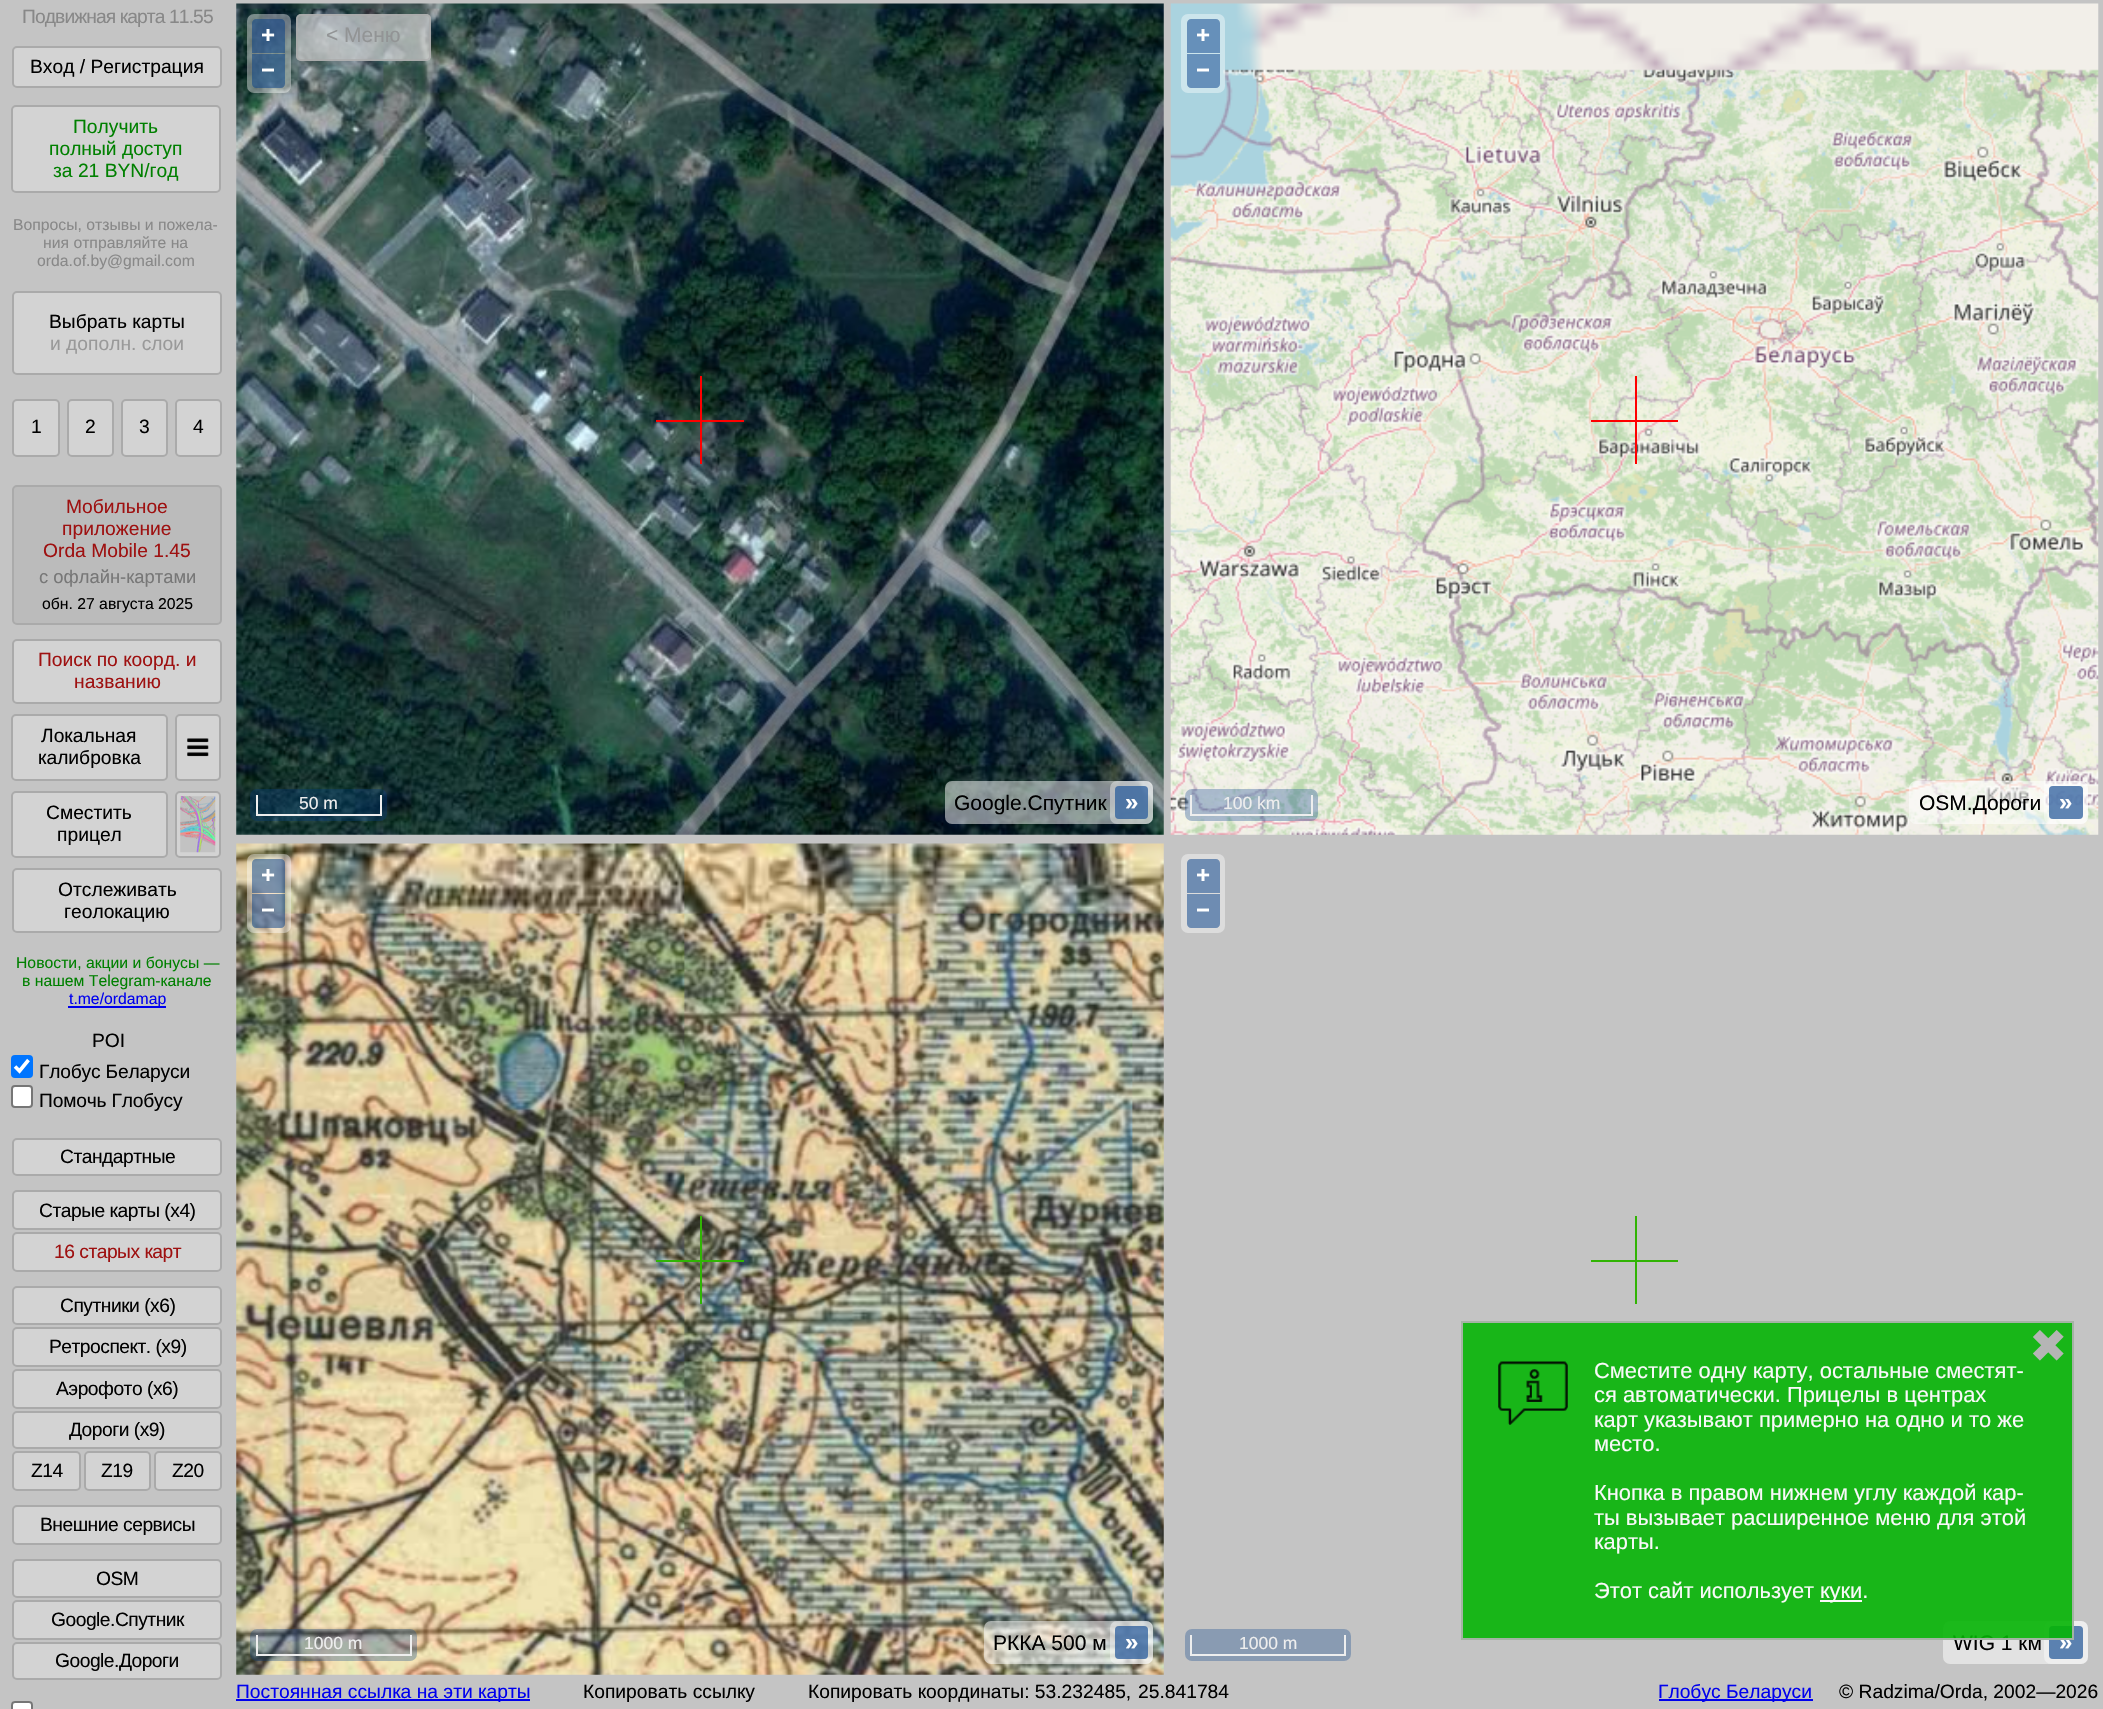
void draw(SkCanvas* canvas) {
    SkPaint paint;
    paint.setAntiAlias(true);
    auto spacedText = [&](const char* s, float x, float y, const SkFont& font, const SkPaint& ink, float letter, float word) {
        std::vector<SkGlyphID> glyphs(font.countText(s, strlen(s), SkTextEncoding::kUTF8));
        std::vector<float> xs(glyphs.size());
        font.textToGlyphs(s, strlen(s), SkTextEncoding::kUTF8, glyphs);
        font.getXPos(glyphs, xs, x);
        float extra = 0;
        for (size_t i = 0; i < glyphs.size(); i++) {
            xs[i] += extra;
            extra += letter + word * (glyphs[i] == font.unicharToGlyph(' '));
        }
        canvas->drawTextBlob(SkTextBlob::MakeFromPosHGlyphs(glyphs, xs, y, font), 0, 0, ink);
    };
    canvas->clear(0xFFC4C4C4);
    SkFont font1(fontMgr->matchFamilyStyle("Liberation Sans", SkFontStyle::Normal()), 19.25f);
    font1.setSubpixel(true);
    paint.setColor(0xFF888888);
    spacedText("Подвижная карта 11.55", 22, 23, font1, paint, -0.9f, 0);
    paint.setColor(0xFFD3D3D3);
    canvas->drawRoundRect(SkRect::MakeXYWH(13, 47, 208, 40), 4, 4, paint);
    paint.setStyle(SkPaint::kStroke_Style);
    paint.setStrokeWidth(2);
    paint.setColor(0xFFAAAAAA);
    canvas->drawRoundRect(SkRect::MakeXYWH(13, 47, 208, 40), 4, 4, paint);
    paint.setStyle(SkPaint::kFill_Style);
    paint.setColor(0xFF000000);
    canvas->drawString("Вход / Регистрация", 30, 73, font1, paint);
    paint.setColor(0xFFD3D3D3);
    canvas->drawRoundRect(SkRect::MakeXYWH(12, 106, 208, 86), 4, 4, paint);
    paint.setStyle(SkPaint::kStroke_Style);
    paint.setColor(0xFFAAAAAA);
    canvas->drawRoundRect(SkRect::MakeXYWH(12, 106, 208, 86), 4, 4, paint);
    paint.setStyle(SkPaint::kFill_Style);
    paint.setColor(0xFF008000);
    canvas->drawString("Получить", 73, 133, font1, paint);
    canvas->drawString("полный доступ", 49, 155, font1, paint);
    canvas->drawString("за 21 BYN/год", 53, 177, font1, paint);
    SkFont font2(fontMgr->matchFamilyStyle("Liberation Sans", SkFontStyle::Normal()), 15.75f);
    font2.setSubpixel(true);
    paint.setColor(0xFF888888);
    canvas->drawString("Вопросы, отзывы и пожела-", 13, 230, font2, paint);
    canvas->drawString("ния отправляйте на", 43, 248, font2, paint);
    canvas->drawString("orda.of.by@gmail.com", 37, 266, font2, paint);
    paint.setColor(0xFFD3D3D3);
    canvas->drawRoundRect(SkRect::MakeXYWH(13, 292, 208, 82), 4, 4, paint);
    paint.setStyle(SkPaint::kStroke_Style);
    paint.setColor(0xFFAAAAAA);
    canvas->drawRoundRect(SkRect::MakeXYWH(13, 292, 208, 82), 4, 4, paint);
    paint.setStyle(SkPaint::kFill_Style);
    paint.setColor(0xFF000000);
    canvas->drawString("Выбрать карты", 49, 328, font1, paint);
    paint.setColor(0xFF999999);
    canvas->drawString("и дополн. слои", 50, 350, font1, paint);
    paint.setColor(0xFFD3D3D3);
    canvas->drawRoundRect(SkRect::MakeXYWH(13, 400, 46, 56), 4, 4, paint);
    paint.setStyle(SkPaint::kStroke_Style);
    paint.setColor(0xFFAAAAAA);
    canvas->drawRoundRect(SkRect::MakeXYWH(13, 400, 46, 56), 4, 4, paint);
    paint.setStyle(SkPaint::kFill_Style);
    paint.setColor(0xFF000000);
    canvas->drawString("1", 31, 433, font1, paint);
    paint.setColor(0xFFD3D3D3);
    canvas->drawRoundRect(SkRect::MakeXYWH(68, 400, 45, 56), 4, 4, paint);
    paint.setStyle(SkPaint::kStroke_Style);
    paint.setColor(0xFFAAAAAA);
    canvas->drawRoundRect(SkRect::MakeXYWH(68, 400, 45, 56), 4, 4, paint);
    paint.setStyle(SkPaint::kFill_Style);
    paint.setColor(0xFF000000);
    canvas->drawString("2", 85, 433, font1, paint);
    paint.setColor(0xFFD3D3D3);
    canvas->drawRoundRect(SkRect::MakeXYWH(122, 400, 45, 56), 4, 4, paint);
    paint.setStyle(SkPaint::kStroke_Style);
    paint.setColor(0xFFAAAAAA);
    canvas->drawRoundRect(SkRect::MakeXYWH(122, 400, 45, 56), 4, 4, paint);
    paint.setStyle(SkPaint::kFill_Style);
    paint.setColor(0xFF000000);
    canvas->drawString("3", 139, 433, font1, paint);
    paint.setColor(0xFFD3D3D3);
    canvas->drawRoundRect(SkRect::MakeXYWH(176, 400, 45, 56), 4, 4, paint);
    paint.setStyle(SkPaint::kStroke_Style);
    paint.setColor(0xFFAAAAAA);
    canvas->drawRoundRect(SkRect::MakeXYWH(176, 400, 45, 56), 4, 4, paint);
    paint.setStyle(SkPaint::kFill_Style);
    paint.setColor(0xFF000000);
    canvas->drawString("4", 193, 433, font1, paint);
    paint.setColor(0xFFBBBBBB);
    canvas->drawRoundRect(SkRect::MakeXYWH(13, 486, 208, 138), 4, 4, paint);
    paint.setStyle(SkPaint::kStroke_Style);
    paint.setColor(0xFFAAAAAA);
    canvas->drawRoundRect(SkRect::MakeXYWH(13, 486, 208, 138), 4, 4, paint);
    paint.setStyle(SkPaint::kFill_Style);
    paint.setColor(0xFF9E1111);
    canvas->drawString("Мобильное", 66, 513, font1, paint);
    canvas->drawString("приложение", 62, 535, font1, paint);
    canvas->drawString("Orda Mobile 1.45", 43, 557, font1, paint);
    SkFont font3(fontMgr->matchFamilyStyle("Liberation Sans", SkFontStyle::Normal()), 18.4f);
    font3.setSubpixel(true);
    paint.setColor(0xFF777777);
    canvas->drawString("с офлайн-картами", 39, 583, font3, paint);
    paint.setColor(0xFF000000);
    canvas->drawString("обн. 27 августа 2025", 42, 609, font2, paint);
    paint.setColor(0xFFD3D3D3);
    canvas->drawRoundRect(SkRect::MakeXYWH(13, 640, 208, 63), 4, 4, paint);
    paint.setStyle(SkPaint::kStroke_Style);
    paint.setColor(0xFFAAAAAA);
    canvas->drawRoundRect(SkRect::MakeXYWH(13, 640, 208, 63), 4, 4, paint);
    paint.setStyle(SkPaint::kFill_Style);
    paint.setColor(0xFF9E1111);
    canvas->drawString("Поиск по коорд. и", 38, 666, font1, paint);
    canvas->drawString("названию", 74, 688, font1, paint);
    paint.setColor(0xFFD3D3D3);
    canvas->drawRoundRect(SkRect::MakeXYWH(12, 715, 155, 65), 4, 4, paint);
    paint.setStyle(SkPaint::kStroke_Style);
    paint.setColor(0xFFAAAAAA);
    canvas->drawRoundRect(SkRect::MakeXYWH(12, 715, 155, 65), 4, 4, paint);
    paint.setStyle(SkPaint::kFill_Style);
    paint.setColor(0xFF000000);
    canvas->drawString("Локальная", 41, 742, font1, paint);
    canvas->drawString("калибровка", 38, 764, font1, paint);
    paint.setColor(0xFFD3D3D3);
    canvas->drawRoundRect(SkRect::MakeXYWH(176, 715, 44, 65), 4, 4, paint);
    paint.setStyle(SkPaint::kStroke_Style);
    paint.setColor(0xFFAAAAAA);
    canvas->drawRoundRect(SkRect::MakeXYWH(176, 715, 44, 65), 4, 4, paint);
    canvas->drawImageRect(SkImages::DeferredFromEncodedData(SkData::MakeFromFileName("img1.png")), SkRect::MakeXYWH(187, 738, 22, 19), SkSamplingOptions());
    paint.setStyle(SkPaint::kFill_Style);
    paint.setColor(0xFFD3D3D3);
    canvas->drawRoundRect(SkRect::MakeXYWH(12, 792, 155, 65), 4, 4, paint);
    paint.setStyle(SkPaint::kStroke_Style);
    paint.setColor(0xFFAAAAAA);
    canvas->drawRoundRect(SkRect::MakeXYWH(12, 792, 155, 65), 4, 4, paint);
    paint.setStyle(SkPaint::kFill_Style);
    paint.setColor(0xFF000000);
    canvas->drawString("Сместить", 46, 819, font1, paint);
    canvas->drawString("прицел", 57, 841, font1, paint);
    paint.setColor(0xFFD3D3D3);
    canvas->drawRoundRect(SkRect::MakeXYWH(176, 792, 44, 65), 4, 4, paint);
    paint.setStyle(SkPaint::kStroke_Style);
    paint.setColor(0xFFAAAAAA);
    canvas->drawRoundRect(SkRect::MakeXYWH(176, 792, 44, 65), 4, 4, paint);
    canvas->drawImageRect(SkImages::DeferredFromEncodedData(SkData::MakeFromFileName("img2.png")), SkRect::MakeXYWH(180, 796, 36, 57), SkSamplingOptions());
    paint.setStyle(SkPaint::kFill_Style);
    paint.setColor(0xFFD3D3D3);
    canvas->drawRoundRect(SkRect::MakeXYWH(13, 869, 208, 63), 4, 4, paint);
    paint.setStyle(SkPaint::kStroke_Style);
    paint.setColor(0xFFAAAAAA);
    canvas->drawRoundRect(SkRect::MakeXYWH(13, 869, 208, 63), 4, 4, paint);
    paint.setStyle(SkPaint::kFill_Style);
    paint.setColor(0xFF000000);
    canvas->drawString("Отслеживать", 58, 896, font1, paint);
    canvas->drawString("геолокацию", 64, 918, font1, paint);
    paint.setColor(0xFF008000);
    canvas->drawString("Новости, акции и бонусы —", 16, 968, font2, paint);
    canvas->drawString("в нашем Telegram-канале", 22, 986, font2, paint);
    paint.setColor(0xFF0000EE);
    canvas->drawRect(SkRect::MakeXYWH(68, 1006, 98, 2), paint);
    canvas->drawString("t.me/ordamap", 69, 1004, font2, paint);
    paint.setColor(0xFF000000);
    canvas->drawString("POI", 92, 1047, font1, paint);
    paint.setColor(0xFF0075FF);
    canvas->drawRoundRect(SkRect::MakeXYWH(11, 1055, 22, 23), 4, 4, paint);
    paint.setStyle(SkPaint::kStroke_Style);
    paint.setStrokeWidth(3.6f);
    paint.setColor(0xFFFFFFFF);
    canvas->drawPath(SkPathBuilder().moveTo(15, 1066.5f).lineTo(19.5f, 1071).lineTo(28.5f, 1060).detach(), paint);
    paint.setStyle(SkPaint::kFill_Style);
    paint.setColor(0xFF000000);
    spacedText("Глобус Беларуси", 39, 1078, font1, paint, -0.2f, 0);
    paint.setColor(0xFFFFFFFF);
    canvas->drawRoundRect(SkRect::MakeXYWH(12, 1086, 20, 21), 3, 3, paint);
    paint.setStyle(SkPaint::kStroke_Style);
    paint.setStrokeWidth(2);
    paint.setColor(0xFF767676);
    canvas->drawRoundRect(SkRect::MakeXYWH(12, 1086, 20, 21), 3, 3, paint);
    paint.setStyle(SkPaint::kFill_Style);
    paint.setColor(0xFF000000);
    spacedText("Помочь Глобусу", 39, 1107, font1, paint, -0.2f, 0);
    paint.setColor(0xFFD3D3D3);
    canvas->drawRoundRect(SkRect::MakeXYWH(13, 1139, 208, 36), 4, 4, paint);
    paint.setStyle(SkPaint::kStroke_Style);
    paint.setColor(0xFFAAAAAA);
    canvas->drawRoundRect(SkRect::MakeXYWH(13, 1139, 208, 36), 4, 4, paint);
    paint.setStyle(SkPaint::kFill_Style);
    paint.setColor(0xFF000000);
    spacedText("Стандартные", 60, 1163, font1, paint, -0.5f, 0);
    paint.setColor(0xFFD3D3D3);
    canvas->drawRoundRect(SkRect::MakeXYWH(13, 1191, 208, 38), 4, 4, paint);
    paint.setStyle(SkPaint::kStroke_Style);
    paint.setColor(0xFFAAAAAA);
    canvas->drawRoundRect(SkRect::MakeXYWH(13, 1191, 208, 38), 4, 4, paint);
    paint.setStyle(SkPaint::kFill_Style);
    paint.setColor(0xFF000000);
    spacedText("Старые карты (x4)", 39, 1217, font1, paint, -0.5f, 0);
    paint.setColor(0xFFD3D3D3);
    canvas->drawRoundRect(SkRect::MakeXYWH(13, 1233, 208, 38), 4, 4, paint);
    paint.setStyle(SkPaint::kStroke_Style);
    paint.setColor(0xFFAAAAAA);
    canvas->drawRoundRect(SkRect::MakeXYWH(13, 1233, 208, 38), 4, 4, paint);
    paint.setStyle(SkPaint::kFill_Style);
    paint.setColor(0xFF9E1111);
    spacedText("16 старых карт", 54, 1258, font1, paint, -0.5f, 0);
    paint.setColor(0xFFD3D3D3);
    canvas->drawRoundRect(SkRect::MakeXYWH(13, 1287, 208, 37), 4, 4, paint);
    paint.setStyle(SkPaint::kStroke_Style);
    paint.setColor(0xFFAAAAAA);
    canvas->drawRoundRect(SkRect::MakeXYWH(13, 1287, 208, 37), 4, 4, paint);
    paint.setStyle(SkPaint::kFill_Style);
    paint.setColor(0xFF000000);
    spacedText("Спутники (x6)", 60, 1312, font1, paint, -0.5f, 0);
    paint.setColor(0xFFD3D3D3);
    canvas->drawRoundRect(SkRect::MakeXYWH(13, 1328, 208, 38), 4, 4, paint);
    paint.setStyle(SkPaint::kStroke_Style);
    paint.setColor(0xFFAAAAAA);
    canvas->drawRoundRect(SkRect::MakeXYWH(13, 1328, 208, 38), 4, 4, paint);
    paint.setStyle(SkPaint::kFill_Style);
    paint.setColor(0xFF000000);
    spacedText("Ретроспект. (x9)", 49, 1353, font1, paint, -0.5f, 0);
    paint.setColor(0xFFD3D3D3);
    canvas->drawRoundRect(SkRect::MakeXYWH(13, 1370, 208, 38), 4, 4, paint);
    paint.setStyle(SkPaint::kStroke_Style);
    paint.setColor(0xFFAAAAAA);
    canvas->drawRoundRect(SkRect::MakeXYWH(13, 1370, 208, 38), 4, 4, paint);
    paint.setStyle(SkPaint::kFill_Style);
    paint.setColor(0xFF000000);
    spacedText("Аэрофото (x6)", 56, 1395, font1, paint, -0.5f, 0);
    paint.setColor(0xFFD3D3D3);
    canvas->drawRoundRect(SkRect::MakeXYWH(13, 1412, 208, 36), 4, 4, paint);
    paint.setStyle(SkPaint::kStroke_Style);
    paint.setColor(0xFFAAAAAA);
    canvas->drawRoundRect(SkRect::MakeXYWH(13, 1412, 208, 36), 4, 4, paint);
    paint.setStyle(SkPaint::kFill_Style);
    paint.setColor(0xFF000000);
    spacedText("Дороги (x9)", 69, 1436, font1, paint, -0.5f, 0);
    paint.setColor(0xFFD3D3D3);
    canvas->drawRoundRect(SkRect::MakeXYWH(13, 1452, 67, 38), 4, 4, paint);
    paint.setStyle(SkPaint::kStroke_Style);
    paint.setColor(0xFFAAAAAA);
    canvas->drawRoundRect(SkRect::MakeXYWH(13, 1452, 67, 38), 4, 4, paint);
    paint.setStyle(SkPaint::kFill_Style);
    paint.setColor(0xFF000000);
    spacedText("Z14", 31, 1477, font1, paint, -0.5f, 0);
    paint.setColor(0xFFD3D3D3);
    canvas->drawRoundRect(SkRect::MakeXYWH(85, 1452, 65, 38), 4, 4, paint);
    paint.setStyle(SkPaint::kStroke_Style);
    paint.setColor(0xFFAAAAAA);
    canvas->drawRoundRect(SkRect::MakeXYWH(85, 1452, 65, 38), 4, 4, paint);
    paint.setStyle(SkPaint::kFill_Style);
    paint.setColor(0xFF000000);
    spacedText("Z19", 101, 1477, font1, paint, -0.5f, 0);
    paint.setColor(0xFFD3D3D3);
    canvas->drawRoundRect(SkRect::MakeXYWH(155, 1452, 66, 38), 4, 4, paint);
    paint.setStyle(SkPaint::kStroke_Style);
    paint.setColor(0xFFAAAAAA);
    canvas->drawRoundRect(SkRect::MakeXYWH(155, 1452, 66, 38), 4, 4, paint);
    paint.setStyle(SkPaint::kFill_Style);
    paint.setColor(0xFF000000);
    spacedText("Z20", 172, 1477, font1, paint, -0.5f, 0);
    paint.setColor(0xFFD3D3D3);
    canvas->drawRoundRect(SkRect::MakeXYWH(13, 1506, 208, 38), 4, 4, paint);
    paint.setStyle(SkPaint::kStroke_Style);
    paint.setColor(0xFFAAAAAA);
    canvas->drawRoundRect(SkRect::MakeXYWH(13, 1506, 208, 38), 4, 4, paint);
    paint.setStyle(SkPaint::kFill_Style);
    paint.setColor(0xFF000000);
    spacedText("Внешние сервисы", 40, 1531, font1, paint, -0.5f, 0);
    paint.setColor(0xFFD3D3D3);
    canvas->drawRoundRect(SkRect::MakeXYWH(13, 1560, 208, 37), 4, 4, paint);
    paint.setStyle(SkPaint::kStroke_Style);
    paint.setColor(0xFFAAAAAA);
    canvas->drawRoundRect(SkRect::MakeXYWH(13, 1560, 208, 37), 4, 4, paint);
    paint.setStyle(SkPaint::kFill_Style);
    paint.setColor(0xFF000000);
    spacedText("OSM", 96, 1585, font1, paint, -0.5f, 0);
    paint.setColor(0xFFD3D3D3);
    canvas->drawRoundRect(SkRect::MakeXYWH(13, 1601, 208, 38), 4, 4, paint);
    paint.setStyle(SkPaint::kStroke_Style);
    paint.setColor(0xFFAAAAAA);
    canvas->drawRoundRect(SkRect::MakeXYWH(13, 1601, 208, 38), 4, 4, paint);
    paint.setStyle(SkPaint::kFill_Style);
    paint.setColor(0xFF000000);
    spacedText("Google.Спутник", 51, 1626, font1, paint, -0.5f, 0);
    paint.setColor(0xFFD3D3D3);
    canvas->drawRoundRect(SkRect::MakeXYWH(13, 1643, 208, 36), 4, 4, paint);
    paint.setStyle(SkPaint::kStroke_Style);
    paint.setColor(0xFFAAAAAA);
    canvas->drawRoundRect(SkRect::MakeXYWH(13, 1643, 208, 36), 4, 4, paint);
    paint.setStyle(SkPaint::kFill_Style);
    paint.setColor(0xFF000000);
    spacedText("Google.Дороги", 55, 1667, font1, paint, -0.5f, 0);
    paint.setColor(0xFFFFFFFF);
    canvas->drawPath(SkPathBuilder().moveTo(15, 1701).lineTo(29, 1701).cubicTo(31, 1701, 33, 1703, 33, 1705).lineTo(33, 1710).lineTo(11, 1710).lineTo(11, 1705).cubicTo(11, 1703, 13, 1701, 15, 1701).close().detach(), paint);
    paint.setStyle(SkPaint::kStroke_Style);
    paint.setColor(0xFF767676);
    canvas->drawRoundRect(SkRect::MakeXYWH(12, 1702, 20, 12), 3, 3, paint);
    canvas->drawImageRect(SkImages::DeferredFromEncodedData(SkData::MakeFromFileName("img3.png")), SkRect::MakeXYWH(236, 3, 928, 832), SkSamplingOptions());
    paint.setStyle(SkPaint::kFill_Style);
    paint.setColor(0xB3D3D3D3);
    canvas->drawRoundRect(SkRect::MakeXYWH(296, 14, 135, 47), 5, 5, paint);
    paint.setStyle(SkPaint::kStroke_Style);
    paint.setColor(0xB3AAAAAA);
    canvas->drawRoundRect(SkRect::MakeXYWH(297, 15, 133, 45), 4, 4, paint);
    SkFont font4(fontMgr->matchFamilyStyle("Liberation Sans", SkFontStyle::Normal()), 21);
    font4.setSubpixel(true);
    paint.setStyle(SkPaint::kFill_Style);
    paint.setColor(0xFF929495);
    canvas->drawString("< Меню", 326, 42, font4, paint);
    paint.setColor(0x66FFFFFF);
    canvas->drawRoundRect(SkRect::MakeXYWH(247, 14, 44, 79), 7, 7, paint);
    paint.setColor(0x80003C88);
    canvas->drawPath(SkPathBuilder().moveTo(256, 19).lineTo(281, 19).cubicTo(283, 19, 285, 21, 285, 23).lineTo(285, 53).lineTo(252, 53).lineTo(252, 23).cubicTo(252, 21, 254, 19, 256, 19).close().detach(), paint);
    SkFont font5(fontMgr->matchFamilyStyle("Liberation Sans", SkFontStyle::Bold()), 24);
    font5.setSubpixel(true);
    paint.setColor(0xFFFFFFFF);
    canvas->drawString("+", 261, 43, font5, paint);
    paint.setColor(0x80003C88);
    canvas->drawPath(SkPathBuilder().moveTo(252, 54).lineTo(285, 54).lineTo(285, 84).cubicTo(285, 86, 283, 88, 281, 88).lineTo(256, 88).cubicTo(254, 88, 252, 86, 252, 84).close().detach(), paint);
    paint.setColor(0xFFFFFFFF);
    canvas->drawString("−", 261, 78, font5, paint);
    paint.setColor(0x66FFFFFF);
    canvas->drawRoundRect(SkRect::MakeXYWH(1110, 781, 43, 43), 7, 7, paint);
    paint.setColor(0x80003C88);
    canvas->drawRoundRect(SkRect::MakeXYWH(1115, 786, 33, 33), 4, 4, paint);
    paint.setColor(0x4D003C88);
    canvas->drawRoundRect(SkRect::MakeXYWH(250, 789, 137, 32), 7, 7, paint);
    paint.setColor(0xFFEEEEEE);
    canvas->drawRect(SkRect::MakeXYWH(380, 795, 2, 21), paint);
    canvas->drawRect(SkRect::MakeXYWH(256, 814, 126, 2), paint);
    canvas->drawRect(SkRect::MakeXYWH(256, 795, 2, 21), paint);
    SkFont font6(fontMgr->matchFamilyStyle("Liberation Sans", SkFontStyle::Normal()), 17.5f);
    font6.setSubpixel(true);
    canvas->drawString("50 m", 299, 809, font6, paint);
    paint.setColor(0x80FFFFFF);
    canvas->drawRoundRect(SkRect::MakeXYWH(945, 781, 208, 43), 7, 7, paint);
    paint.setColor(0xFF000000);
    canvas->drawString("Google.Спутник", 954, 810, font4, paint);
    paint.setColor(0x80003C88);
    canvas->drawRoundRect(SkRect::MakeXYWH(1115, 786, 33, 33), 4, 4, paint);
    paint.setColor(0xFFFFFFFF);
    canvas->drawString("»", 1125, 810, font5, paint);
    paint.setColor(0xFFFF0000);
    canvas->drawRect(SkRect::MakeXYWH(700, 376, 2, 88), paint);
    canvas->drawRect(SkRect::MakeXYWH(656, 420, 88, 2), paint);
    canvas->drawImageRect(SkImages::DeferredFromEncodedData(SkData::MakeFromFileName("img4.png")), SkRect::MakeXYWH(1170, 3, 929, 832), SkSamplingOptions());
    paint.setColor(0x66FFFFFF);
    canvas->drawRoundRect(SkRect::MakeXYWH(1181, 14, 44, 79), 7, 7, paint);
    paint.setColor(0xFF6690BA);
    canvas->drawPath(SkPathBuilder().moveTo(1191, 19).lineTo(1216, 19).cubicTo(1218, 19, 1220, 21, 1220, 23).lineTo(1220, 53).lineTo(1187, 53).lineTo(1187, 23).cubicTo(1187, 21, 1189, 19, 1191, 19).close().detach(), paint);
    paint.setColor(0xFFFFFFFF);
    canvas->drawString("+", 1196, 43, font5, paint);
    paint.setColor(0xFF6690BA);
    canvas->drawPath(SkPathBuilder().moveTo(1187, 54).lineTo(1220, 54).lineTo(1220, 84).cubicTo(1220, 86, 1218, 88, 1216, 88).lineTo(1191, 88).cubicTo(1189, 88, 1187, 86, 1187, 84).close().detach(), paint);
    paint.setColor(0xFFFFFFFF);
    canvas->drawString("−", 1196, 78, font5, paint);
    paint.setColor(0x66FFFFFF);
    canvas->drawRoundRect(SkRect::MakeXYWH(2044, 781, 44, 43), 7, 7, paint);
    paint.setColor(0x80003C88);
    canvas->drawRoundRect(SkRect::MakeXYWH(2049, 786, 34, 33), 4, 4, paint);
    paint.setColor(0x4D003C88);
    canvas->drawRoundRect(SkRect::MakeXYWH(1185, 789, 133, 32), 7, 7, paint);
    paint.setColor(0xFFEEEEEE);
    canvas->drawRect(SkRect::MakeXYWH(1311, 795, 2, 21), paint);
    canvas->drawRect(SkRect::MakeXYWH(1190, 814, 123, 2), paint);
    canvas->drawRect(SkRect::MakeXYWH(1190, 795, 2, 21), paint);
    canvas->drawString("100 km", 1223, 809, font6, paint);
    paint.setColor(0x80FFFFFF);
    canvas->drawRoundRect(SkRect::MakeXYWH(1909, 781, 179, 43), 7, 7, paint);
    paint.setColor(0xFF000000);
    canvas->drawString("OSM.Дороги", 1919, 810, font4, paint);
    paint.setColor(0x80003C88);
    canvas->drawRoundRect(SkRect::MakeXYWH(2049, 786, 34, 33), 4, 4, paint);
    paint.setColor(0xFFFFFFFF);
    canvas->drawString("»", 2059, 810, font5, paint);
    paint.setColor(0xFFFF0000);
    canvas->drawRect(SkRect::MakeXYWH(1635, 376, 2, 88), paint);
    canvas->drawRect(SkRect::MakeXYWH(1591, 420, 87, 2), paint);
    canvas->drawImageRect(SkImages::DeferredFromEncodedData(SkData::MakeFromFileName("img5.png")), SkRect::MakeXYWH(236, 843, 928, 832), SkSamplingOptions());
    paint.setColor(0x66FFFFFF);
    canvas->drawRoundRect(SkRect::MakeXYWH(247, 854, 44, 79), 7, 7, paint);
    paint.setColor(0x80003C88);
    canvas->drawPath(SkPathBuilder().moveTo(256, 859).lineTo(281, 859).cubicTo(283, 859, 285, 861, 285, 863).lineTo(285, 893).lineTo(252, 893).lineTo(252, 863).cubicTo(252, 861, 254, 859, 256, 859).close().detach(), paint);
    paint.setColor(0xFFFFFFFF);
    canvas->drawString("+", 261, 883, font5, paint);
    paint.setColor(0x80003C88);
    canvas->drawPath(SkPathBuilder().moveTo(252, 894).lineTo(285, 894).lineTo(285, 924).cubicTo(285, 926, 283, 928, 281, 928).lineTo(256, 928).cubicTo(254, 928, 252, 926, 252, 924).close().detach(), paint);
    paint.setColor(0xFFFFFFFF);
    canvas->drawString("−", 261, 918, font5, paint);
    paint.setColor(0x66FFFFFF);
    canvas->drawRoundRect(SkRect::MakeXYWH(1110, 1621, 43, 43), 7, 7, paint);
    paint.setColor(0x80003C88);
    canvas->drawRoundRect(SkRect::MakeXYWH(1115, 1626, 33, 33), 4, 4, paint);
    paint.setColor(0x4D003C88);
    canvas->drawRoundRect(SkRect::MakeXYWH(250, 1629, 167, 32), 7, 7, paint);
    paint.setColor(0xFFEEEEEE);
    canvas->drawRect(SkRect::MakeXYWH(410, 1635, 2, 21), paint);
    canvas->drawRect(SkRect::MakeXYWH(256, 1654, 155, 2), paint);
    canvas->drawRect(SkRect::MakeXYWH(256, 1635, 2, 21), paint);
    canvas->drawString("1000 m", 304, 1649, font6, paint);
    paint.setColor(0x80FFFFFF);
    canvas->drawRoundRect(SkRect::MakeXYWH(984, 1621, 169, 43), 7, 7, paint);
    paint.setColor(0xFF000000);
    canvas->drawString("РККА 500 м", 993, 1650, font4, paint);
    paint.setColor(0x80003C88);
    canvas->drawRoundRect(SkRect::MakeXYWH(1115, 1626, 33, 33), 4, 4, paint);
    paint.setColor(0xFFFFFFFF);
    canvas->drawString("»", 1125, 1650, font5, paint);
    paint.setColor(0xFF31B404);
    canvas->drawRect(SkRect::MakeXYWH(700, 1216, 2, 88), paint);
    canvas->drawRect(SkRect::MakeXYWH(656, 1260, 88, 2), paint);
    paint.setColor(0xFFDCDCDC);
    canvas->drawRoundRect(SkRect::MakeXYWH(1181, 854, 44, 79), 7, 7, paint);
    paint.setColor(0xFF6E8CB2);
    canvas->drawPath(SkPathBuilder().moveTo(1191, 859).lineTo(1216, 859).cubicTo(1218, 859, 1220, 861, 1220, 863).lineTo(1220, 893).lineTo(1187, 893).lineTo(1187, 863).cubicTo(1187, 861, 1189, 859, 1191, 859).close().detach(), paint);
    paint.setColor(0xFFFFFFFF);
    canvas->drawString("+", 1196, 883, font5, paint);
    paint.setColor(0xFF6E8CB2);
    canvas->drawPath(SkPathBuilder().moveTo(1187, 894).lineTo(1220, 894).lineTo(1220, 924).cubicTo(1220, 926, 1218, 928, 1216, 928).lineTo(1191, 928).cubicTo(1189, 928, 1187, 926, 1187, 924).close().detach(), paint);
    paint.setColor(0xFFFFFFFF);
    canvas->drawString("−", 1196, 918, font5, paint);
    paint.setColor(0xFFDCDCDC);
    canvas->drawRoundRect(SkRect::MakeXYWH(2044, 1621, 44, 43), 7, 7, paint);
    paint.setColor(0xFF6E8CB2);
    canvas->drawRoundRect(SkRect::MakeXYWH(2049, 1626, 34, 33), 4, 4, paint);
    paint.setColor(0xFF899BB2);
    canvas->drawRoundRect(SkRect::MakeXYWH(1185, 1629, 166, 32), 7, 7, paint);
    paint.setColor(0xFFEEEEEE);
    canvas->drawRect(SkRect::MakeXYWH(1344, 1635, 2, 21), paint);
    canvas->drawRect(SkRect::MakeXYWH(1190, 1654, 156, 2), paint);
    canvas->drawRect(SkRect::MakeXYWH(1190, 1635, 2, 21), paint);
    canvas->drawString("1000 m", 1239, 1649, font6, paint);
    paint.setColor(0x80FFFFFF);
    canvas->drawRoundRect(SkRect::MakeXYWH(1943, 1621, 145, 43), 7, 7, paint);
    paint.setColor(0xFF000000);
    canvas->drawString("WIG 1 км", 1953, 1650, font4, paint);
    paint.setColor(0x80003C88);
    canvas->drawRoundRect(SkRect::MakeXYWH(2049, 1626, 34, 33), 4, 4, paint);
    paint.setColor(0xFFFFFFFF);
    canvas->drawString("»", 2059, 1650, font5, paint);
    paint.setColor(0xFF31B404);
    canvas->drawRect(SkRect::MakeXYWH(1635, 1216, 2, 88), paint);
    canvas->drawRect(SkRect::MakeXYWH(1591, 1260, 87, 2), paint);
    paint.setColor(0xFF0000EE);
    canvas->drawRect(SkRect::MakeXYWH(236, 1699, 294, 2), paint);
    canvas->drawString("Постоянная ссылка на эти карты", 236, 1698, font1, paint);
    paint.setColor(0xFF000000);
    canvas->drawString("Копировать ссылку", 583, 1698, font1, paint);
    canvas->drawString("Копировать координаты: 53.232485,", 808, 1698, font1, paint);
    canvas->drawString("25.841784", 1138, 1698, font1, paint);
    paint.setColor(0xFF0000EE);
    canvas->drawRect(SkRect::MakeXYWH(1659, 1699, 154, 2), paint);
    canvas->drawString("Глобус Беларуси", 1658, 1698, font1, paint);
    paint.setColor(0xFF000000);
    canvas->drawString("© Radzima/Orda, 2002—2026", 1839, 1698, font1, paint);
    paint.setColor(0xE604B404);
    canvas->drawRect(SkRect::MakeXYWH(1461, 1321, 613, 319), paint);
    paint.setStyle(SkPaint::kStroke_Style);
    paint.setColor(0xE6B3B3B3);
    canvas->drawRect(SkRect::MakeXYWH(1462, 1322, 611, 317), paint);
    SkFont font7(fontMgr->matchFamilyStyle("DejaVu Sans", SkFontStyle::Normal()), 46);
    font7.setSubpixel(true);
    paint.setStyle(SkPaint::kFill_Style);
    paint.setColor(0xFFB5B5B5);
    canvas->drawString("✖", 2029, 1362, font7, paint);
    canvas->drawImageRect(SkImages::DeferredFromEncodedData(SkData::MakeFromFileName("img6.png")), SkRect::MakeXYWH(1498, 1361, 70, 64), SkSamplingOptions());
    SkFont font8(fontMgr->matchFamilyStyle("Liberation Sans", SkFontStyle::Normal()), 21.9f);
    font8.setSubpixel(true);
    paint.setColor(0xFFF9F9F9);
    canvas->drawString("Сместите одну карту, остальные сместят-", 1594, 1378, font8, paint);
    canvas->drawString("ся автоматически. Прицелы в центрах", 1594, 1402, font8, paint);
    canvas->drawString("карт указывают примерно на одно и то же", 1594, 1427, font8, paint);
    canvas->drawString("место.", 1594, 1451, font8, paint);
    canvas->drawString("Кнопка в правом нижнем углу каждой кар-", 1594, 1500, font8, paint);
    canvas->drawString("ты вызывает расширенное меню для этой", 1594, 1525, font8, paint);
    canvas->drawString("карты.", 1594, 1549, font8, paint);
    canvas->drawString("Этот сайт использует", 1594, 1598, font8, paint);
    canvas->drawRect(SkRect::MakeXYWH(1820, 1600, 42, 2), paint);
    canvas->drawString("куки.", 1820, 1598, font8, paint);
}
